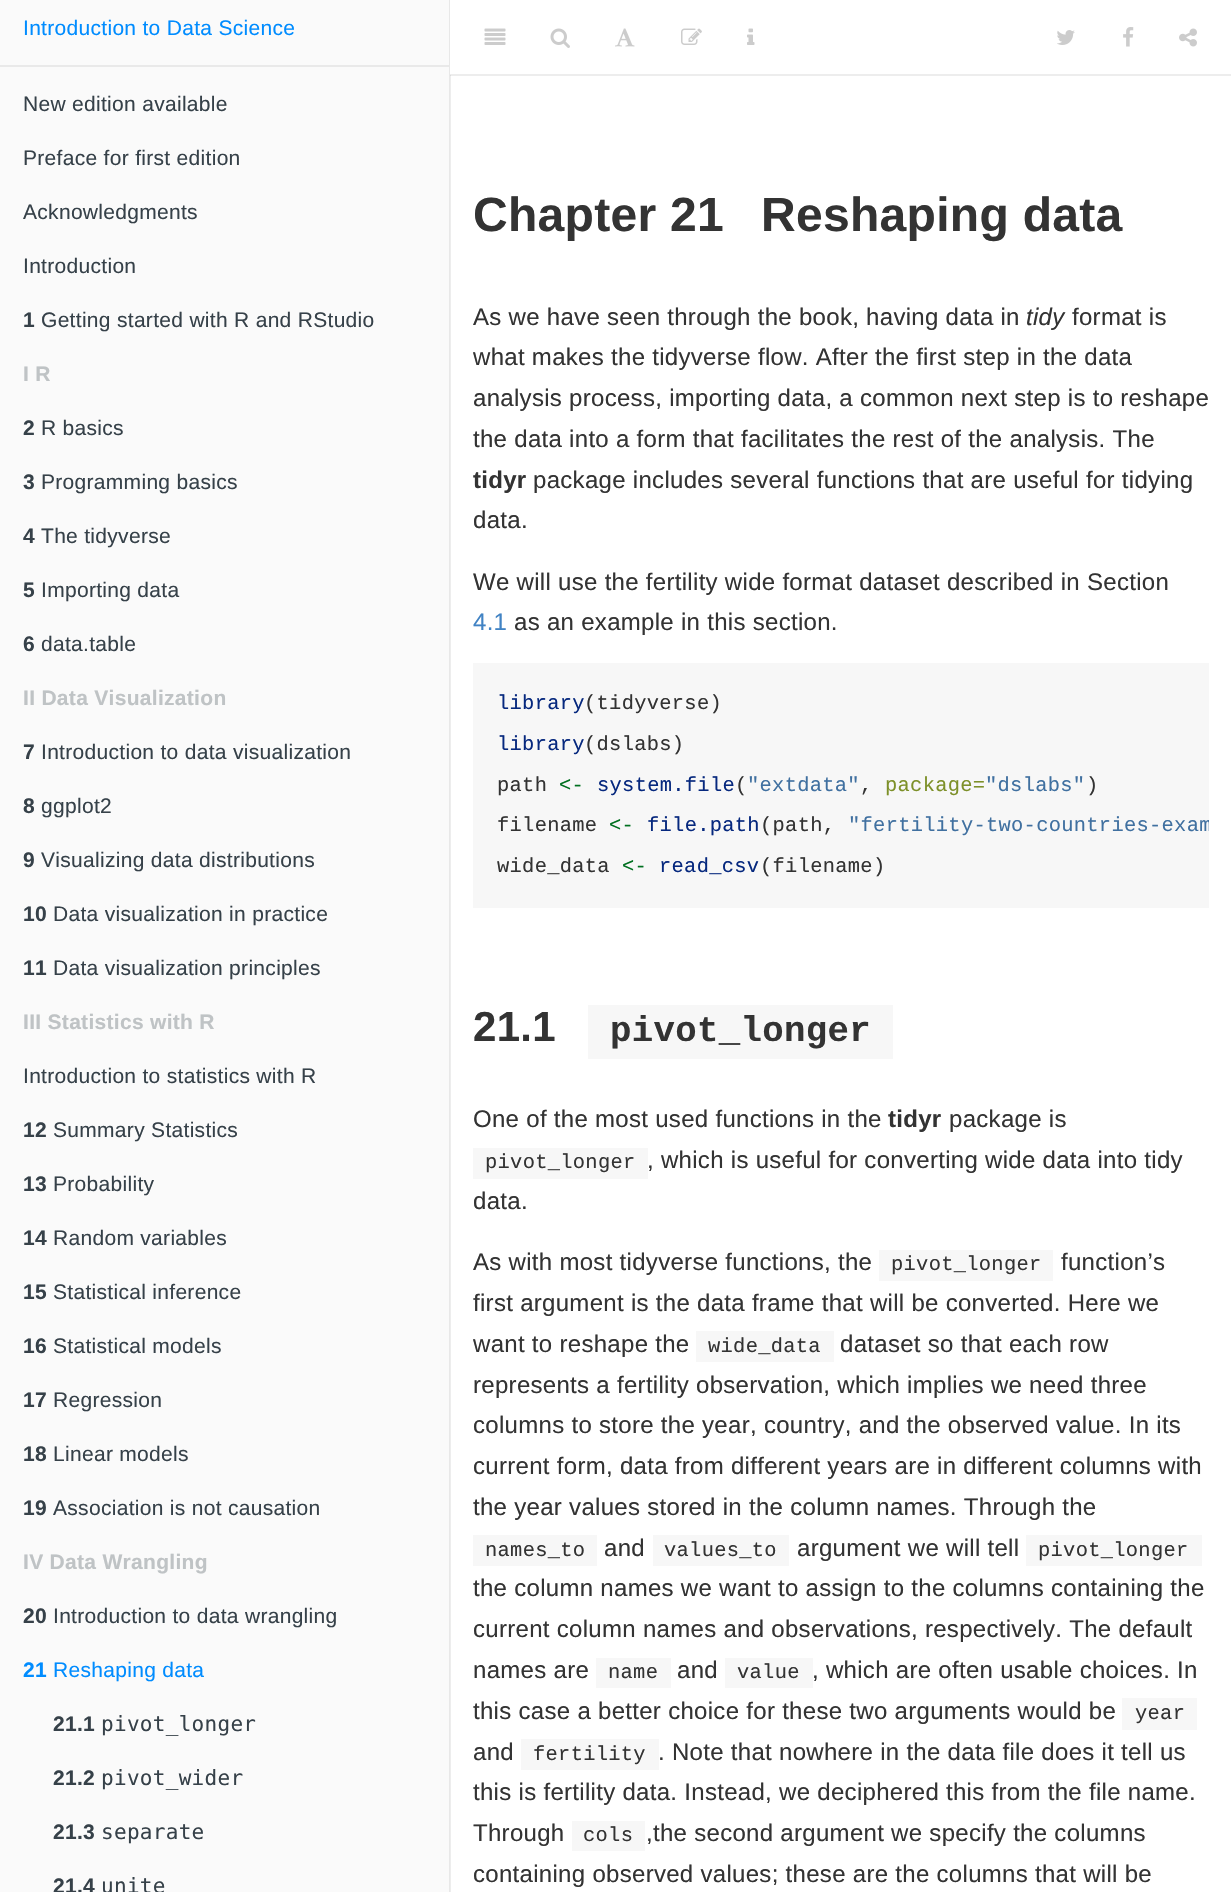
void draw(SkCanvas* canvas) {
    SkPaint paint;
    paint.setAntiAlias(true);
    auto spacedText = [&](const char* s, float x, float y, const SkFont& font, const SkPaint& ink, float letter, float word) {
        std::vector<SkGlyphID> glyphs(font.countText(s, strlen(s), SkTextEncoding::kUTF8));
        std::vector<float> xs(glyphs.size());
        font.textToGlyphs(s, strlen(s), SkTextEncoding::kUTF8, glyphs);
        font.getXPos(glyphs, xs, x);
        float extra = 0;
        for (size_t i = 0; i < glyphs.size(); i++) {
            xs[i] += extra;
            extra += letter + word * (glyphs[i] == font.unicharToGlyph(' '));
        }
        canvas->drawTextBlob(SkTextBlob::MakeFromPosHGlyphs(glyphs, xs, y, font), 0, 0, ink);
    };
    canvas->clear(0xFFFFFFFF);
    paint.setColor(0xFFEDEDED);
    canvas->drawRect(SkRect::MakeXYWH(450, 75, 781, 1), paint);
    canvas->drawRect(SkRect::MakeXYWH(450, 76, 1, 1816), paint);
    paint.setColor(0xFFDCDCDC);
    canvas->drawRect(SkRect::MakeXYWH(450, 74, 1, 2), paint);
    paint.setColor(0xFFFAFAFA);
    canvas->drawRect(SkRect::MakeXYWH(0, 0, 449, 1892), paint);
    paint.setColor(0xFFE8E8E8);
    canvas->drawRect(SkRect::MakeXYWH(449, 0, 1, 1892), paint);
    SkFont font1(fontMgr->matchFamilyStyle("Liberation Sans", SkFontStyle::Normal()), 21);
    font1.setSubpixel(true);
    paint.setColor(0xFF008CFF);
    spacedText("Introduction to Data Science", 23, 35, font1, paint, 0.3f, 0);
    paint.setColor(0xFFE9E9E9);
    canvas->drawRect(SkRect::MakeXYWH(0, 65, 449, 2), paint);
    paint.setColor(0xFF364149);
    spacedText("New edition available", 23, 111, font1, paint, 0.3f, 0);
    spacedText("Preface for first edition", 23, 165, font1, paint, 0.3f, 0);
    spacedText("Acknowledgments", 23, 219, font1, paint, 0.3f, 0);
    spacedText("Introduction", 23, 273, font1, paint, 0.3f, 0);
    SkFont font2(fontMgr->matchFamilyStyle("Liberation Sans", SkFontStyle::Bold()), 21);
    font2.setSubpixel(true);
    spacedText("1", 23, 327, font2, paint, 0.3f, 0);
    spacedText("Getting started with R and RStudio", 41, 327, font1, paint, 0.3f, 0);
    paint.setColor(0xFFBFC3C5);
    spacedText("I R", 23, 381, font2, paint, 0.3f, 0);
    paint.setColor(0xFF364149);
    spacedText("2", 23, 435, font2, paint, 0.3f, 0);
    spacedText("R basics", 41, 435, font1, paint, 0.3f, 0);
    spacedText("3", 23, 489, font2, paint, 0.3f, 0);
    spacedText("Programming basics", 41, 489, font1, paint, 0.3f, 0);
    spacedText("4", 23, 543, font2, paint, 0.3f, 0);
    spacedText("The tidyverse", 41, 543, font1, paint, 0.3f, 0);
    spacedText("5", 23, 597, font2, paint, 0.3f, 0);
    spacedText("Importing data", 41, 597, font1, paint, 0.3f, 0);
    spacedText("6", 23, 651, font2, paint, 0.3f, 0);
    spacedText("data.table", 41, 651, font1, paint, 0.3f, 0);
    paint.setColor(0xFFBFC3C5);
    spacedText("II Data Visualization", 23, 705, font2, paint, 0.3f, 0);
    paint.setColor(0xFF364149);
    spacedText("7", 23, 759, font2, paint, 0.3f, 0);
    spacedText("Introduction to data visualization", 41, 759, font1, paint, 0.3f, 0);
    spacedText("8", 23, 813, font2, paint, 0.3f, 0);
    spacedText("ggplot2", 41, 813, font1, paint, 0.3f, 0);
    spacedText("9", 23, 867, font2, paint, 0.3f, 0);
    spacedText("Visualizing data distributions", 41, 867, font1, paint, 0.3f, 0);
    spacedText("10", 23, 921, font2, paint, 0.3f, 0);
    spacedText("Data visualization in practice", 53, 921, font1, paint, 0.3f, 0);
    spacedText("11", 23, 975, font2, paint, 0.3f, 0);
    spacedText("Data visualization principles", 53, 975, font1, paint, 0.3f, 0);
    paint.setColor(0xFFBFC3C5);
    spacedText("III Statistics with R", 23, 1029, font2, paint, 0.3f, 0);
    paint.setColor(0xFF364149);
    spacedText("Introduction to statistics with R", 23, 1083, font1, paint, 0.3f, 0);
    spacedText("12", 23, 1137, font2, paint, 0.3f, 0);
    spacedText("Summary Statistics", 53, 1137, font1, paint, 0.3f, 0);
    spacedText("13", 23, 1191, font2, paint, 0.3f, 0);
    spacedText("Probability", 53, 1191, font1, paint, 0.3f, 0);
    spacedText("14", 23, 1245, font2, paint, 0.3f, 0);
    spacedText("Random variables", 53, 1245, font1, paint, 0.3f, 0);
    spacedText("15", 23, 1299, font2, paint, 0.3f, 0);
    spacedText("Statistical inference", 53, 1299, font1, paint, 0.3f, 0);
    spacedText("16", 23, 1353, font2, paint, 0.3f, 0);
    spacedText("Statistical models", 53, 1353, font1, paint, 0.3f, 0);
    spacedText("17", 23, 1407, font2, paint, 0.3f, 0);
    spacedText("Regression", 53, 1407, font1, paint, 0.3f, 0);
    spacedText("18", 23, 1461, font2, paint, 0.3f, 0);
    spacedText("Linear models", 53, 1461, font1, paint, 0.3f, 0);
    spacedText("19", 23, 1515, font2, paint, 0.3f, 0);
    spacedText("Association is not causation", 53, 1515, font1, paint, 0.3f, 0);
    paint.setColor(0xFFBFC3C5);
    spacedText("IV Data Wrangling", 23, 1569, font2, paint, 0.3f, 0);
    paint.setColor(0xFF364149);
    spacedText("20", 23, 1623, font2, paint, 0.3f, 0);
    spacedText("Introduction to data wrangling", 53, 1623, font1, paint, 0.3f, 0);
    paint.setColor(0xFF008CFF);
    spacedText("21", 23, 1677, font2, paint, 0.3f, 0);
    spacedText("Reshaping data", 53, 1677, font1, paint, 0.3f, 0);
    paint.setColor(0xFF364149);
    spacedText("21.1", 53, 1731, font2, paint, 0.3f, 0);
    SkFont font3(fontMgr->matchFamilyStyle("DejaVu Sans Mono", SkFontStyle::Normal()), 21);
    font3.setSubpixel(true);
    spacedText("pivot_longer", 101, 1731, font3, paint, 0.3f, 0);
    spacedText("21.2", 53, 1785, font2, paint, 0.3f, 0);
    spacedText("pivot_wider", 101, 1785, font3, paint, 0.3f, 0);
    spacedText("21.3", 53, 1839, font2, paint, 0.3f, 0);
    spacedText("separate", 101, 1839, font3, paint, 0.3f, 0);
    spacedText("21.4", 53, 1893, font2, paint, 0.3f, 0);
    spacedText("unite", 101, 1893, font3, paint, 0.3f, 0);
    paint.setColor(0xFFEDEDED);
    canvas->drawRect(SkRect::MakeXYWH(450, 74, 781, 1), paint);
    canvas->drawImageRect(SkImages::DeferredFromEncodedData(SkData::MakeFromFileName("img1.png")), SkRect::MakeXYWH(484, 28, 22, 17), SkSamplingOptions());
    canvas->drawImageRect(SkImages::DeferredFromEncodedData(SkData::MakeFromFileName("img2.png")), SkRect::MakeXYWH(550, 28, 20, 20), SkSamplingOptions());
    canvas->drawImageRect(SkImages::DeferredFromEncodedData(SkData::MakeFromFileName("img3.png")), SkRect::MakeXYWH(615, 28, 20, 19), SkSamplingOptions());
    canvas->drawImageRect(SkImages::DeferredFromEncodedData(SkData::MakeFromFileName("img4.png")), SkRect::MakeXYWH(681, 28, 21, 17), SkSamplingOptions());
    canvas->drawImageRect(SkImages::DeferredFromEncodedData(SkData::MakeFromFileName("img5.png")), SkRect::MakeXYWH(747, 28, 8, 17), SkSamplingOptions());
    canvas->drawImageRect(SkImages::DeferredFromEncodedData(SkData::MakeFromFileName("img6.png")), SkRect::MakeXYWH(1057, 30, 18, 15), SkSamplingOptions());
    canvas->drawImageRect(SkImages::DeferredFromEncodedData(SkData::MakeFromFileName("img7.png")), SkRect::MakeXYWH(1123, 27, 11, 20), SkSamplingOptions());
    canvas->drawImageRect(SkImages::DeferredFromEncodedData(SkData::MakeFromFileName("img8.png")), SkRect::MakeXYWH(1179, 28, 18, 19), SkSamplingOptions());
    SkFont font4(fontMgr->matchFamilyStyle("Liberation Sans", SkFontStyle::Bold()), 48);
    font4.setSubpixel(true);
    paint.setColor(0xFF333333);
    spacedText("Chapter 21", 473, 231, font4, paint, 0.3f, 0);
    spacedText("Reshaping data", 761, 231, font4, paint, 0.3f, 0);
    SkFont font5(fontMgr->matchFamilyStyle("Liberation Sans", SkFontStyle::Normal()), 24);
    font5.setSubpixel(true);
    spacedText("As we have seen through the book, having data in", 473, 325, font5, paint, 0.3f, 0);
    SkFont font6(fontMgr->matchFamilyStyle("Liberation Sans", SkFontStyle::Italic()), 24);
    font6.setSubpixel(true);
    spacedText("tidy", 1026, 325, font6, paint, 0.3f, 0);
    spacedText("format is", 1072, 325, font5, paint, 0.3f, 0);
    spacedText("what makes the tidyverse flow. After the first step in the data", 473, 365, font5, paint, 0.3f, 0);
    spacedText("analysis process, importing data, a common next step is to reshape", 473, 406, font5, paint, 0.3f, 0);
    spacedText("the data into a form that facilitates the rest of the analysis. The", 473, 447, font5, paint, 0.3f, 0);
    SkFont font7(fontMgr->matchFamilyStyle("Liberation Sans", SkFontStyle::Bold()), 24);
    font7.setSubpixel(true);
    spacedText("tidyr", 473, 488, font7, paint, 0.3f, 0);
    spacedText("package includes several functions that are useful for tidying", 533, 488, font5, paint, 0.3f, 0);
    spacedText("data.", 473, 528, font5, paint, 0.3f, 0);
    spacedText("We will use the fertility wide format dataset described in Section", 473, 590, font5, paint, 0.3f, 0);
    paint.setColor(0xFF4183C4);
    spacedText("4.1", 473, 630, font5, paint, 0.3f, 0);
    paint.setColor(0xFF333333);
    spacedText("as an example in this section.", 514, 630, font5, paint, 0.3f, 0);
    paint.setColor(0xFFF7F7F7);
    canvas->drawRect(SkRect::MakeXYWH(473, 663, 736, 245), paint);
    SkFont font8(fontMgr->matchFamilyStyle("Liberation Mono", SkFontStyle::Normal()), 20.4f);
    font8.setSubpixel(true);
    paint.setColor(0xFF06287E);
    spacedText("library", 497, 709, font8, paint, 0.3f, 0);
    paint.setColor(0xFF333333);
    spacedText("(tidyverse)", 584, 709, font8, paint, 0.3f, 0);
    paint.setColor(0xFF06287E);
    spacedText("library", 497, 750, font8, paint, 0.3f, 0);
    paint.setColor(0xFF333333);
    spacedText("(dslabs)", 584, 750, font8, paint, 0.3f, 0);
    spacedText("path", 497, 791, font8, paint, 0.3f, 0);
    paint.setColor(0xFF007020);
    spacedText("<-", 559, 791, font8, paint, 0.3f, 0);
    paint.setColor(0xFF06287E);
    spacedText("system.file", 597, 791, font8, paint, 0.3f, 0);
    paint.setColor(0xFF333333);
    spacedText("(", 735, 791, font8, paint, 0.3f, 0);
    paint.setColor(0xFF4070A0);
    spacedText("\"extdata\"", 747, 791, font8, paint, 0.3f, 0);
    paint.setColor(0xFF7D9029);
    spacedText("package=", 885, 791, font8, paint, 0.3f, 0);
    paint.setColor(0xFF4070A0);
    spacedText("\"dslabs\"", 985, 791, font8, paint, 0.3f, 0);
    paint.setColor(0xFF333333);
    spacedText(")", 1086, 791, font8, paint, 0.3f, 0);
    spacedText(",", 860, 791, font8, paint, 0.3f, 0);
    spacedText("filename", 497, 831, font8, paint, 0.3f, 0);
    paint.setColor(0xFF007020);
    spacedText("<-", 609, 831, font8, paint, 0.3f, 0);
    paint.setColor(0xFF06287E);
    spacedText("file.path", 647, 831, font8, paint, 0.3f, 0);
    paint.setColor(0xFF333333);
    spacedText("(path,", 760, 831, font8, paint, 0.3f, 0);
    canvas->save();
    canvas->clipRect(SkRect::MakeXYWH(473, 663, 736, 245));
    paint.setColor(0xFF4070A0);
    spacedText("\"fertility-two-countries-exam", 848, 831, font8, paint, 0.3f, 0);
    canvas->restore();
    paint.setColor(0xFF333333);
    spacedText("wide_data", 497, 872, font8, paint, 0.3f, 0);
    paint.setColor(0xFF007020);
    spacedText("<-", 622, 872, font8, paint, 0.3f, 0);
    paint.setColor(0xFF06287E);
    spacedText("read_csv", 659, 872, font8, paint, 0.3f, 0);
    paint.setColor(0xFF333333);
    spacedText("(filename)", 760, 872, font8, paint, 0.3f, 0);
    SkFont font9(fontMgr->matchFamilyStyle("Liberation Sans", SkFontStyle::Bold()), 42);
    font9.setSubpixel(true);
    spacedText("21.1", 473, 1041, font9, paint, 0.3f, 0);
    paint.setColor(0xFFF7F7F7);
    canvas->drawRect(SkRect::MakeXYWH(588, 1005, 305, 54), paint);
    SkFont font10(fontMgr->matchFamilyStyle("Liberation Mono", SkFontStyle::Bold()), 35.75f);
    font10.setSubpixel(true);
    paint.setColor(0xFF333333);
    spacedText("pivot_longer", 610, 1041, font10, paint, 0.3f, 0);
    spacedText("One of the most used functions in the", 473, 1127, font5, paint, 0.3f, 0);
    spacedText("tidyr", 888, 1127, font7, paint, 0.3f, 0);
    spacedText("package is", 949, 1127, font5, paint, 0.3f, 0);
    paint.setColor(0xFFF7F7F7);
    canvas->drawRect(SkRect::MakeXYWH(473, 1148, 175, 31), paint);
    paint.setColor(0xFF333333);
    spacedText("pivot_longer", 485, 1168, font8, paint, 0.3f, 0);
    spacedText(", which is useful for converting wide data into tidy", 647, 1168, font5, paint, 0.3f, 0);
    spacedText("data.", 473, 1209, font5, paint, 0.3f, 0);
    spacedText("As with most tidyverse functions, the", 473, 1270, font5, paint, 0.3f, 0);
    paint.setColor(0xFFF7F7F7);
    canvas->drawRect(SkRect::MakeXYWH(879, 1250, 174, 31), paint);
    paint.setColor(0xFF333333);
    spacedText("pivot_longer", 891, 1270, font8, paint, 0.3f, 0);
    spacedText("function’s", 1061, 1270, font5, paint, 0.3f, 0);
    spacedText("first argument is the data frame that will be converted. Here we", 473, 1311, font5, paint, 0.3f, 0);
    spacedText("want to reshape the", 473, 1352, font5, paint, 0.3f, 0);
    paint.setColor(0xFFF7F7F7);
    canvas->drawRect(SkRect::MakeXYWH(696, 1331, 138, 31), paint);
    paint.setColor(0xFF333333);
    spacedText("wide_data", 708, 1352, font8, paint, 0.3f, 0);
    spacedText("dataset so that each row", 840, 1352, font5, paint, 0.3f, 0);
    spacedText("represents a fertility observation, which implies we need three", 473, 1393, font5, paint, 0.3f, 0);
    spacedText("columns to store the year, country, and the observed value. In its", 473, 1433, font5, paint, 0.3f, 0);
    spacedText("current form, data from different years are in different columns with", 473, 1474, font5, paint, 0.3f, 0);
    spacedText("the year values stored in the column names. Through the", 473, 1515, font5, paint, 0.3f, 0);
    paint.setColor(0xFFF7F7F7);
    canvas->drawRect(SkRect::MakeXYWH(473, 1535, 124, 31), paint);
    paint.setColor(0xFF333333);
    spacedText("names_to", 485, 1556, font8, paint, 0.3f, 0);
    spacedText("and", 604, 1556, font5, paint, 0.3f, 0);
    paint.setColor(0xFFF7F7F7);
    canvas->drawRect(SkRect::MakeXYWH(653, 1535, 136, 31), paint);
    paint.setColor(0xFF333333);
    spacedText("values_to", 664, 1556, font8, paint, 0.3f, 0);
    spacedText("argument we will tell", 797, 1556, font5, paint, 0.3f, 0);
    paint.setColor(0xFFF7F7F7);
    canvas->drawRect(SkRect::MakeXYWH(1026, 1535, 176, 31), paint);
    paint.setColor(0xFF333333);
    spacedText("pivot_longer", 1038, 1556, font8, paint, 0.3f, 0);
    spacedText("the column names we want to assign to the columns containing the", 473, 1596, font5, paint, 0.3f, 0);
    spacedText("current column names and observations, respectively. The default", 473, 1637, font5, paint, 0.3f, 0);
    spacedText("names are", 473, 1678, font5, paint, 0.3f, 0);
    paint.setColor(0xFFF7F7F7);
    canvas->drawRect(SkRect::MakeXYWH(596, 1658, 75, 30), paint);
    paint.setColor(0xFF333333);
    spacedText("name", 608, 1678, font8, paint, 0.3f, 0);
    spacedText("and", 677, 1678, font5, paint, 0.3f, 0);
    paint.setColor(0xFFF7F7F7);
    canvas->drawRect(SkRect::MakeXYWH(725, 1658, 88, 30), paint);
    paint.setColor(0xFF333333);
    spacedText("value", 737, 1678, font8, paint, 0.3f, 0);
    spacedText(", which are often usable choices. In", 812, 1678, font5, paint, 0.3f, 0);
    spacedText("this case a better choice for these two arguments would be", 473, 1719, font5, paint, 0.3f, 0);
    paint.setColor(0xFFF7F7F7);
    canvas->drawRect(SkRect::MakeXYWH(1122, 1698, 75, 32), paint);
    paint.setColor(0xFF333333);
    spacedText("year", 1135, 1719, font8, paint, 0.3f, 0);
    spacedText("and", 473, 1760, font5, paint, 0.3f, 0);
    paint.setColor(0xFFF7F7F7);
    canvas->drawRect(SkRect::MakeXYWH(521, 1739, 138, 31), paint);
    paint.setColor(0xFF333333);
    spacedText("fertility", 533, 1760, font8, paint, 0.3f, 0);
    spacedText(". Note that nowhere in the data file does it tell us", 658, 1760, font5, paint, 0.3f, 0);
    spacedText("this is fertility data. Instead, we deciphered this from the file name.", 473, 1800, font5, paint, 0.3f, 0);
    spacedText("Through", 473, 1841, font5, paint, 0.3f, 0);
    paint.setColor(0xFFF7F7F7);
    canvas->drawRect(SkRect::MakeXYWH(572, 1821, 73, 30), paint);
    paint.setColor(0xFF333333);
    spacedText("cols", 583, 1841, font8, paint, 0.3f, 0);
    spacedText(",the second argument we specify the columns", 646, 1841, font5, paint, 0.3f, 0);
    spacedText("containing observed values; these are the columns that will be", 473, 1882, font5, paint, 0.3f, 0);
}
